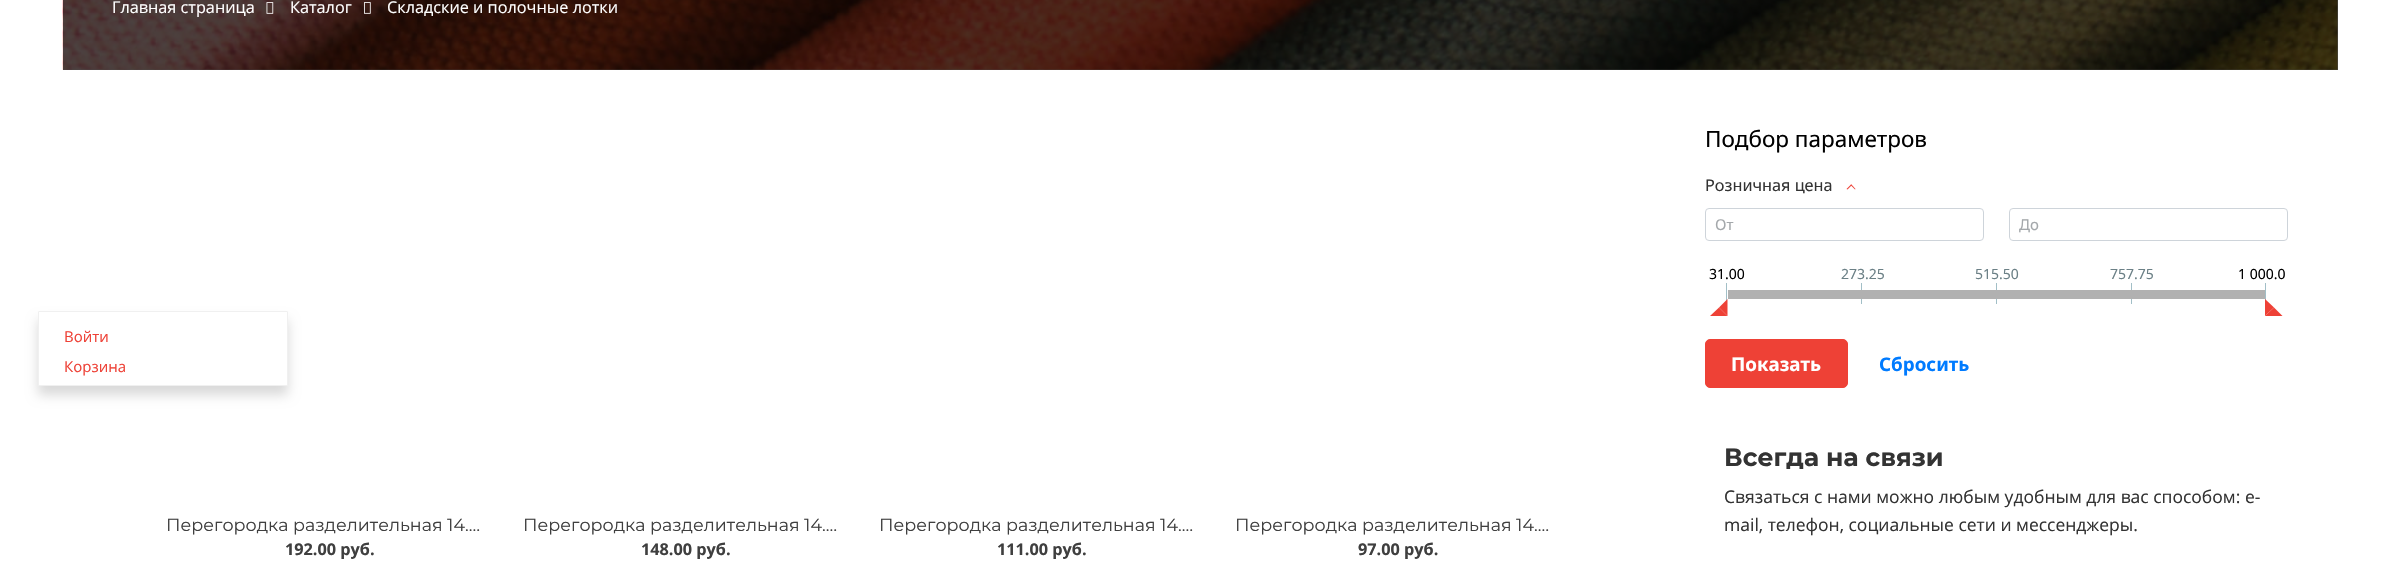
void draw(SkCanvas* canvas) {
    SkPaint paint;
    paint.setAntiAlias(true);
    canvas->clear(0xFFFFFFFF);
    paint.setColor(0xFF4D4D4D);
    canvas->drawRect(SkRect::MakeXYWH(63, 0, 2275, 70), paint);
    canvas->drawImageRect(SkImages::DeferredFromEncodedData(SkData::MakeFromFileName("img1.png")), SkRect::MakeXYWH(62, 0, 2276, 70), SkSamplingOptions());
    SkFont font1(fontMgr->matchFamilyStyle("Open Sans", SkFontStyle::Normal()), 16.25f);
    font1.setSubpixel(true);
    paint.setColor(0xFFFFFFFF);
    canvas->drawString("Главная страница", 112, 13, font1, paint);
    canvas->drawImageRect(SkImages::DeferredFromEncodedData(SkData::MakeFromFileName("img2.png")), SkRect::MakeXYWH(266, 2, 8, 12), SkSamplingOptions());
    canvas->drawString("Каталог", 290, 13, font1, paint);
    canvas->drawImageRect(SkImages::DeferredFromEncodedData(SkData::MakeFromFileName("img3.png")), SkRect::MakeXYWH(364, 2, 7, 12), SkSamplingOptions());
    canvas->drawString("Складские и полочные лотки", 387, 13, font1, paint);
    paint.setColor(0x26000000);
    paint.setMaskFilter(SkMaskFilter::MakeBlur(kNormal_SkBlurStyle, 6));
    canvas->drawRoundRect(SkRect::MakeXYWH(38, 320, 250, 75), 1, 1, paint);
    paint.setMaskFilter(nullptr);
    paint.setColor(0xFFFFFFFF);
    canvas->drawRoundRect(SkRect::MakeXYWH(38.5f, 311.5f, 249, 74), 0.5f, 0.5f, paint);
    paint.setStyle(SkPaint::kStroke_Style);
    paint.setStrokeWidth(1);
    paint.setColor(0xFFF0F0F0);
    canvas->drawRoundRect(SkRect::MakeXYWH(38.5f, 311.5f, 249, 74), 0.5f, 0.5f, paint);
    SkFont font2(fontMgr->matchFamilyStyle("Open Sans", SkFontStyle::Normal()), 15);
    font2.setSubpixel(true);
    paint.setStyle(SkPaint::kFill_Style);
    paint.setColor(0xFFEE4136);
    canvas->drawString("Войти", 64, 342, font2, paint);
    canvas->drawString("Корзина", 64, 372, font2, paint);
    SkFont font3(fontMgr->matchFamilyStyle("Montserrat", SkFontStyle::Normal()), 17.5f);
    font3.setSubpixel(true);
    paint.setColor(0xFF3F3F3F);
    canvas->drawString("Перегородка разделительная 14.…", 166, 531, font3, paint);
    SkFont font4(fontMgr->matchFamilyStyle("Open Sans", SkFontStyle::Bold()), 16.25f);
    font4.setSubpixel(true);
    canvas->drawString("192.00 руб.", 285, 555, font4, paint);
    canvas->drawString("Перегородка разделительная 14.…", 523, 531, font3, paint);
    canvas->drawString("148.00 руб.", 641, 555, font4, paint);
    canvas->drawString("Перегородка разделительная 14.…", 879, 531, font3, paint);
    canvas->drawString("111.00 руб.", 997, 555, font4, paint);
    canvas->drawString("Перегородка разделительная 14.…", 1235, 531, font3, paint);
    canvas->drawString("97.00 руб.", 1358, 555, font4, paint);
    SkFont font5(fontMgr->matchFamilyStyle("Noto Sans", SkFontStyle::Normal()), 22.5f);
    font5.setSubpixel(true);
    paint.setColor(0xFF000000);
    canvas->drawString("Подбор параметров", 1705, 147, font5, paint);
    SkFont font6(fontMgr->matchFamilyStyle("Noto Sans", SkFontStyle::Normal()), 16.25f);
    font6.setSubpixel(true);
    paint.setColor(0xFF333333);
    canvas->drawString("Розничная цена", 1705, 191, font6, paint);
    paint.setColor(0xFFEE4136);
    canvas->drawPath(SkPathBuilder().moveTo(1846.5f, 189).lineTo(1851, 184.5f).lineTo(1852, 185).lineTo(1847.5f, 189.5f).close().detach(), paint);
    canvas->drawPath(SkPathBuilder().moveTo(1851.5f, 184.5f).lineTo(1855.5f, 189).lineTo(1855, 189.5f).lineTo(1850.5f, 185).close().detach(), paint);
    paint.setStyle(SkPaint::kStroke_Style);
    paint.setColor(0xFFCED4DA);
    canvas->drawRoundRect(SkRect::MakeXYWH(1705.5f, 208.5f, 278, 32), 3.5f, 3.5f, paint);
    SkFont font7(fontMgr->matchFamilyStyle("Noto Sans", SkFontStyle::Normal()), 15);
    font7.setSubpixel(true);
    paint.setStyle(SkPaint::kFill_Style);
    paint.setColor(0xFFA4A8AB);
    canvas->drawString("От", 1715, 230, font7, paint);
    paint.setStyle(SkPaint::kStroke_Style);
    paint.setColor(0xFFCED4DA);
    canvas->drawRoundRect(SkRect::MakeXYWH(2009.5f, 208.5f, 278, 32), 3.5f, 3.5f, paint);
    canvas->save();
    canvas->clipRect(SkRect::MakeXYWH(2019, 214, 259, 21));
    paint.setStyle(SkPaint::kFill_Style);
    paint.setColor(0xFFA4A8AB);
    canvas->drawString("До", 2019, 230, font7, paint);
    canvas->restore();
    paint.setColor(0xFFA2BFC7);
    canvas->drawRect(SkRect::MakeXYWH(1726, 283, 1, 21), paint);
    SkFont font8(fontMgr->matchFamilyStyle("Noto Sans", SkFontStyle::Normal()), 14);
    font8.setSubpixel(true);
    paint.setColor(0xFF000000);
    canvas->drawString("31.00", 1709, 279, font8, paint);
    paint.setColor(0xFFA2BFC7);
    canvas->drawRect(SkRect::MakeXYWH(1861, 283, 1, 21), paint);
    paint.setColor(0xFF6B8086);
    canvas->drawString("273.25", 1841, 279, font8, paint);
    paint.setColor(0xFFA2BFC7);
    canvas->drawRect(SkRect::MakeXYWH(1996, 283, 1, 21), paint);
    paint.setColor(0xFF6B8086);
    canvas->drawString("515.50", 1975, 279, font8, paint);
    paint.setColor(0xFFA2BFC7);
    canvas->drawRect(SkRect::MakeXYWH(2131, 283, 1, 21), paint);
    paint.setColor(0xFF6B8086);
    canvas->drawString("757.75", 2110, 279, font8, paint);
    paint.setColor(0xFFA2BFC7);
    canvas->drawRect(SkRect::MakeXYWH(2265, 283, 1, 21), paint);
    paint.setColor(0xFF000000);
    canvas->drawString("1 000.0", 2238, 279, font8, paint);
    paint.setColor(0xFFB1B1B1);
    canvas->drawRect(SkRect::MakeXYWH(1728, 290, 537, 9), paint);
    paint.setColor(0xFFEE4136);
    canvas->drawPath(SkPathBuilder().moveTo(1727.5f, 299).lineTo(1727.5f, 316).lineTo(1719, 307.5f).close().detach(), paint);
    canvas->drawPath(SkPathBuilder().moveTo(1727.5f, 316).lineTo(1710, 316).lineTo(1719, 307.5f).close().detach(), paint);
    canvas->drawPath(SkPathBuilder().moveTo(2282.5f, 316).lineTo(2265, 316).lineTo(2274, 307.5f).close().detach(), paint);
    canvas->drawPath(SkPathBuilder().moveTo(2265, 316).lineTo(2265, 299).lineTo(2274, 307.5f).close().detach(), paint);
    canvas->drawRoundRect(SkRect::MakeXYWH(1705.5f, 339.5f, 142, 48), 4.5f, 4.5f, paint);
    paint.setStyle(SkPaint::kStroke_Style);
    canvas->drawRoundRect(SkRect::MakeXYWH(1705.5f, 339.5f, 142, 48), 4.5f, 4.5f, paint);
    SkFont font9(fontMgr->matchFamilyStyle("Noto Sans", SkFontStyle::Bold()), 18.75f);
    font9.setSubpixel(true);
    paint.setStyle(SkPaint::kFill_Style);
    paint.setColor(0xFFFFFFFF);
    canvas->drawString("Показать", 1731, 371, font9, paint);
    paint.setColor(0xFF007BFF);
    canvas->drawString("Сбросить", 1879, 371, font9, paint);
    SkFont font10(fontMgr->matchFamilyStyle("Montserrat", SkFontStyle::Bold()), 25);
    font10.setSubpixel(true);
    paint.setColor(0xFF333333);
    canvas->drawString("Всегда на связи", 1724, 466, font10, paint);
    SkFont font11(fontMgr->matchFamilyStyle("Open Sans", SkFontStyle::Normal()), 17.5f);
    font11.setSubpixel(true);
    canvas->drawString("Связаться с нами можно любым удобным для вас способом: e-", 1724, 503, font11, paint);
    canvas->drawString("mail, телефон, социальные сети и мессенджеры.", 1724, 531, font11, paint);
}
